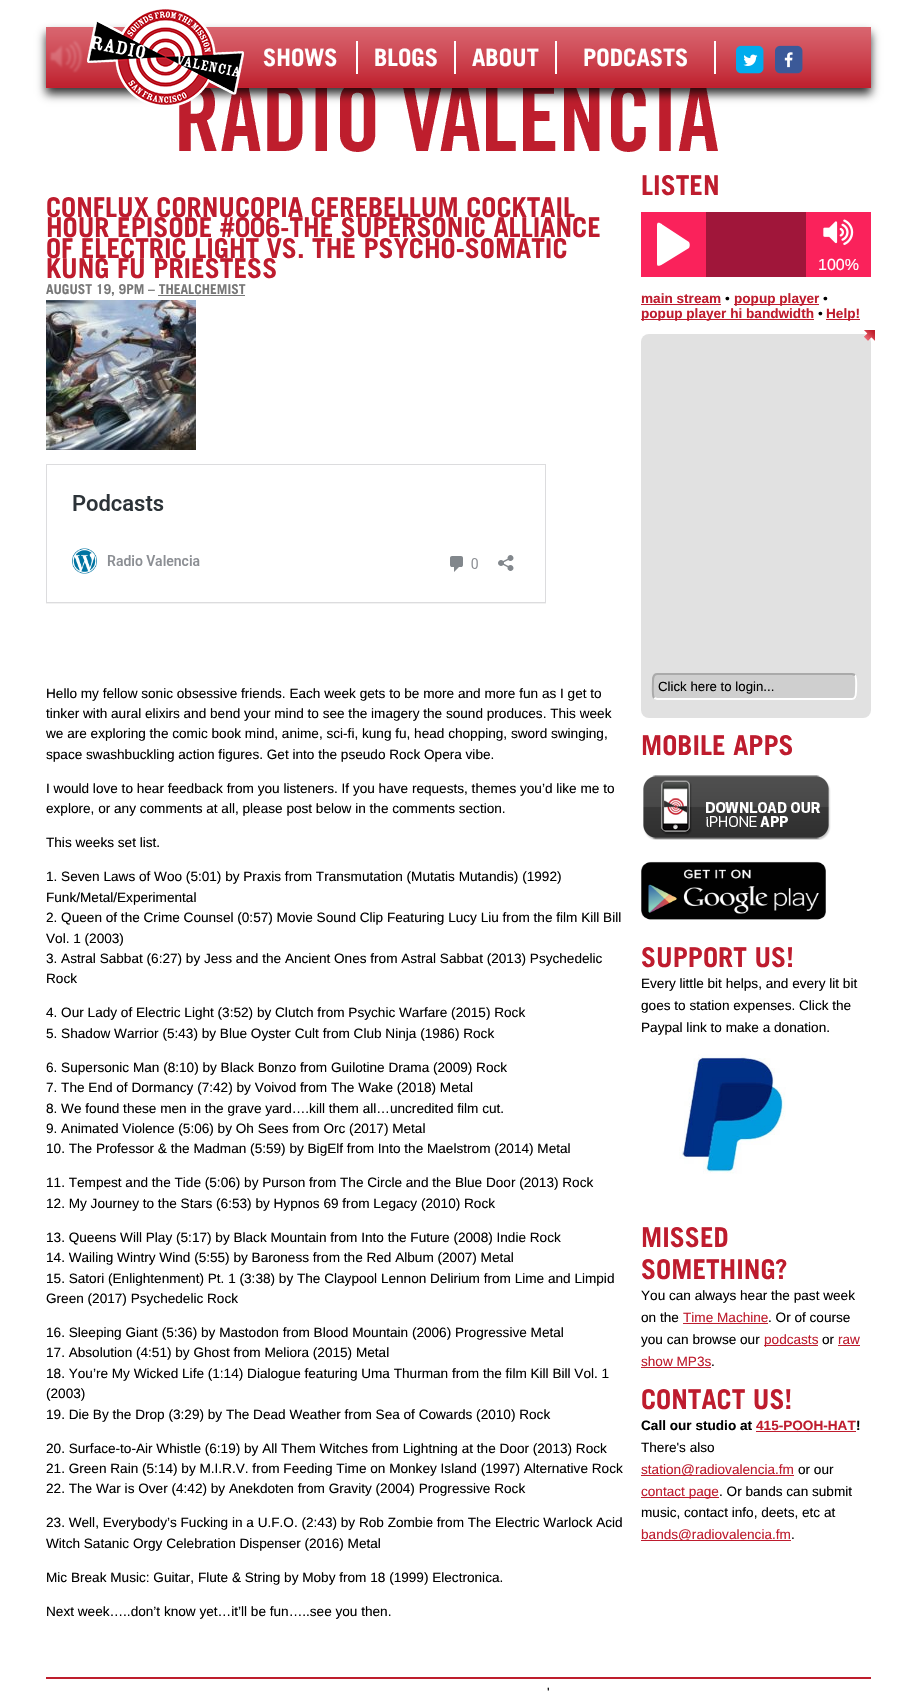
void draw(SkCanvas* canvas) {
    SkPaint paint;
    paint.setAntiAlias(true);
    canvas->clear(0xFFFFFFFF);
    canvas->drawImageRect(SkImages::DeferredFromEncodedData(SkData::MakeFromFileName("img1.png")), SkRect::MakeXYWH(179, 88, 539, 64), SkSamplingOptions());
    paint.setColor(0xCC000000);
    paint.setMaskFilter(SkMaskFilter::MakeBlur(kNormal_SkBlurStyle, 4.5f));
    canvas->drawRect(SkRect::MakeXYWH(46, 33, 825, 61), paint);
    paint.setMaskFilter(nullptr);
    canvas->drawImageRect(SkImages::DeferredFromEncodedData(SkData::MakeFromFileName("img3.png")), SkRect::MakeXYWH(46, 27, 825, 61), SkSamplingOptions());
    canvas->drawImageRect(SkImages::DeferredFromEncodedData(SkData::MakeFromFileName("img2.png")), SkRect::MakeXYWH(49, 40, 34, 33), SkSamplingOptions());
    canvas->drawImageRect(SkImages::DeferredFromEncodedData(SkData::MakeFromFileName("img4.png")), SkRect::MakeXYWH(87, 9, 157, 97), SkSamplingOptions());
    paint.setColor(0xFFFFFFFF);
    canvas->drawRect(SkRect::MakeXYWH(356, 41, 2, 33), paint);
    SkFont font1(fontMgr->matchFamilyStyle("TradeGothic", SkFontStyle::Bold()), 24);
    font1.setSubpixel(true);
    canvas->drawString("SHOWS", 263, 66, font1, paint);
    canvas->drawRect(SkRect::MakeXYWH(454, 41, 2, 33), paint);
    canvas->drawString("BLOGS", 374, 66, font1, paint);
    canvas->drawRect(SkRect::MakeXYWH(555, 41, 2, 33), paint);
    canvas->drawString("ABOUT", 472, 66, font1, paint);
    canvas->drawRect(SkRect::MakeXYWH(714, 41, 2, 33), paint);
    canvas->drawString("PODCASTS", 583, 66, font1, paint);
    canvas->drawImageRect(SkImages::DeferredFromEncodedData(SkData::MakeFromFileName("img5.png")), SkRect::MakeXYWH(736, 45, 28, 29), SkSamplingOptions());
    canvas->drawImageRect(SkImages::DeferredFromEncodedData(SkData::MakeFromFileName("img6.png")), SkRect::MakeXYWH(743, 54, 15, 12), SkSamplingOptions());
    canvas->drawImageRect(SkImages::DeferredFromEncodedData(SkData::MakeFromFileName("img7.png")), SkRect::MakeXYWH(775, 45, 28, 29), SkSamplingOptions());
    canvas->drawImageRect(SkImages::DeferredFromEncodedData(SkData::MakeFromFileName("img8.png")), SkRect::MakeXYWH(784, 52, 9, 16), SkSamplingOptions());
    SkFont font2(fontMgr->matchFamilyStyle("TradeGothic", SkFontStyle::Bold()), 27.2f);
    font2.setSubpixel(true);
    paint.setColor(0xFFBE1C2E);
    canvas->drawString("CONFLUX CORNUCOPIA CEREBELLUM COCKTAIL", 46, 217, font2, paint);
    canvas->drawString("HOUR EPISODE #006-THE SUPERSONIC ALLIANCE", 46, 237, font2, paint);
    canvas->drawString("OF ELECTRIC LIGHT VS. THE PSYCHO-SOMATIC", 46, 258, font2, paint);
    canvas->drawString("KUNG FU PRIESTESS", 46, 278, font2, paint);
    SkFont font3(fontMgr->matchFamilyStyle("TradeGothic", SkFontStyle::Bold()), 13.6f);
    font3.setSubpixel(true);
    paint.setColor(0xFF777777);
    canvas->drawString("AUGUST 19, 9PM – THEALCHEMIST", 46, 294, font3, paint);
    canvas->drawRect(SkRect::MakeXYWH(158, 295, 87, 1), paint);
    canvas->drawImageRect(SkImages::DeferredFromEncodedData(SkData::MakeFromFileName("img9.png")), SkRect::MakeXYWH(46, 300, 150, 150), SkSamplingOptions());
    canvas->drawImageRect(SkImages::DeferredFromEncodedData(SkData::MakeFromFileName("img10.png")), SkRect::MakeXYWH(46, 464, 500, 140), SkSamplingOptions());
    SkFont font4(fontMgr->matchFamilyStyle("Liberation Sans", SkFontStyle::Normal()), 13.6f);
    font4.setSubpixel(true);
    paint.setColor(0xFF000000);
    canvas->drawString("Hello my fellow sonic obsessive friends. Each week gets to be more and more fun as I get to", 46, 698, font4, paint);
    canvas->drawString("tinker with aural elixirs and bend your mind to see the imagery the sound produces. This week", 46, 718, font4, paint);
    canvas->drawString("we are exploring the comic book mind, anime, sci-fi, kung fu, head chopping, sword swinging,", 46, 738, font4, paint);
    canvas->drawString("space swashbuckling action figures. Get into the pseudo Rock Opera vibe.", 46, 759, font4, paint);
    canvas->drawString("I would love to hear feedback from you listeners. If you have requests, themes you’d like me to", 46, 793, font4, paint);
    canvas->drawString("explore, or any comments at all, please post below in the comments section.", 46, 813, font4, paint);
    canvas->drawString("This weeks set list.", 46, 847, font4, paint);
    canvas->drawString("1. Seven Laws of Woo (5:01) by Praxis from Transmutation (Mutatis Mutandis) (1992)", 46, 881, font4, paint);
    canvas->drawString("Funk/Metal/Experimental", 46, 902, font4, paint);
    canvas->drawString("2. Queen of the Crime Counsel (0:57) Movie Sound Clip Featuring Lucy Liu from the film Kill Bill", 46, 922, font4, paint);
    canvas->drawString("Vol. 1 (2003)", 46, 943, font4, paint);
    canvas->drawString("3. Astral Sabbat (6:27) by Jess and the Ancient Ones from Astral Sabbat (2013) Psychedelic", 46, 963, font4, paint);
    canvas->drawString("Rock", 46, 983, font4, paint);
    canvas->drawString("4. Our Lady of Electric Light (3:52) by Clutch from Psychic Warfare (2015) Rock", 46, 1017, font4, paint);
    canvas->drawString("5. Shadow Warrior (5:43) by Blue Oyster Cult from Club Ninja (1986) Rock", 46, 1038, font4, paint);
    canvas->drawString("6. Supersonic Man (8:10) by Black Bonzo from Guilotine Drama (2009) Rock", 46, 1072, font4, paint);
    canvas->drawString("7. The End of Dormancy (7:42) by Voivod from The Wake (2018) Metal", 46, 1092, font4, paint);
    canvas->drawString("8. We found these men in the grave yard….kill them all…uncredited film cut.", 46, 1113, font4, paint);
    canvas->drawString("9. Animated Violence (5:06) by Oh Sees from Orc (2017) Metal", 46, 1133, font4, paint);
    canvas->drawString("10. The Professor & the Madman (5:59) by BigElf from Into the Maelstrom (2014) Metal", 46, 1153, font4, paint);
    canvas->drawString("11. Tempest and the Tide (5:06) by Purson from The Circle and the Blue Door (2013) Rock", 46, 1187, font4, paint);
    canvas->drawString("12. My Journey to the Stars (6:53) by Hypnos 69 from Legacy (2010) Rock", 46, 1208, font4, paint);
    canvas->drawString("13. Queens Will Play (5:17) by Black Mountain from Into the Future (2008) Indie Rock", 46, 1242, font4, paint);
    canvas->drawString("14. Wailing Wintry Wind (5:55) by Baroness from the Red Album (2007) Metal", 46, 1262, font4, paint);
    canvas->drawString("15. Satori (Enlightenment) Pt. 1 (3:38) by The Claypool Lennon Delirium from Lime and Limpid", 46, 1283, font4, paint);
    canvas->drawString("Green (2017) Psychedelic Rock", 46, 1303, font4, paint);
    canvas->drawString("16. Sleeping Giant (5:36) by Mastodon from Blood Mountain (2006) Progressive Metal", 46, 1337, font4, paint);
    canvas->drawString("17. Absolution (4:51) by Ghost from Meliora (2015) Metal", 46, 1357, font4, paint);
    canvas->drawString("18. You’re My Wicked Life (1:14) Dialogue featuring Uma Thurman from the film Kill Bill Vol. 1", 46, 1378, font4, paint);
    canvas->drawString("(2003)", 46, 1398, font4, paint);
    canvas->drawString("19. Die By the Drop (3:29) by The Dead Weather from Sea of Cowards (2010) Rock", 46, 1419, font4, paint);
    canvas->drawString("20. Surface-to-Air Whistle (6:19) by All Them Witches from Lightning at the Door (2013) Rock", 46, 1453, font4, paint);
    canvas->drawString("21. Green Rain (5:14) by M.I.R.V. from Feeding Time on Monkey Island (1997) Alternative Rock", 46, 1473, font4, paint);
    canvas->drawString("22. The War is Over (4:42) by Anekdoten from Gravity (2004) Progressive Rock", 46, 1493, font4, paint);
    canvas->drawString("23. Well, Everybody’s Fucking in a U.F.O. (2:43) by Rob Zombie from The Electric Warlock Acid", 46, 1527, font4, paint);
    canvas->drawString("Witch Satanic Orgy Celebration Dispenser (2016) Metal", 46, 1548, font4, paint);
    canvas->drawString("Mic Break Music: Guitar, Flute & String by Moby from 18 (1999) Electronica.", 46, 1582, font4, paint);
    canvas->drawString("Next week…..don’t know yet…it’ll be fun…..see you then.", 46, 1616, font4, paint);
    paint.setColor(0xFFBE1C2E);
    canvas->drawString("LISTEN", 641, 195, font2, paint);
    paint.setColor(0xFFFA225B);
    canvas->drawRect(SkRect::MakeXYWH(641, 212, 65, 65), paint);
    paint.setColor(0xFFFFFFFF);
    canvas->drawPath(SkPathBuilder().moveTo(663, 264).cubicTo(663, 264, 657, 268, 657, 264).lineTo(657, 225).cubicTo(657, 220, 663, 225, 663, 225).lineTo(689, 242).cubicTo(690, 244, 690, 246, 689, 248).close().detach(), paint);
    paint.setColor(0xFFA0163A);
    canvas->drawRect(SkRect::MakeXYWH(706, 212, 100, 65), paint);
    paint.setColor(0xFFFA225B);
    canvas->drawRect(SkRect::MakeXYWH(806, 212, 65, 65), paint);
    canvas->drawImageRect(SkImages::DeferredFromEncodedData(SkData::MakeFromFileName("img11.png")), SkRect::MakeXYWH(823, 219, 31, 26), SkSamplingOptions());
    SkFont font5(fontMgr->matchFamilyStyle("Liberation Sans", SkFontStyle::Normal()), 16);
    font5.setSubpixel(true);
    paint.setColor(0xFFFFFFFF);
    canvas->drawString("100%", 818, 270, font5, paint);
    SkFont font6(fontMgr->matchFamilyStyle("Liberation Sans", SkFontStyle::Bold()), 13.6f);
    font6.setSubpixel(true);
    paint.setColor(0xFFBE1C2E);
    canvas->drawString("main stream", 641, 303, font6, paint);
    canvas->drawRect(SkRect::MakeXYWH(641, 304, 80, 1), paint);
    paint.setColor(0xFF000000);
    canvas->drawString("•", 725, 303, font4, paint);
    paint.setColor(0xFFBE1C2E);
    canvas->drawRect(SkRect::MakeXYWH(734, 304, 85, 1), paint);
    canvas->drawString("popup player", 734, 303, font6, paint);
    paint.setColor(0xFF000000);
    canvas->drawString("•", 823, 303, font4, paint);
    paint.setColor(0xFFBE1C2E);
    canvas->drawRect(SkRect::MakeXYWH(641, 319, 173, 1), paint);
    canvas->drawString("popup player hi bandwidth", 641, 318, font6, paint);
    paint.setColor(0xFF000000);
    canvas->drawString("•", 818, 318, font4, paint);
    paint.setColor(0xFFBE1C2E);
    canvas->drawRect(SkRect::MakeXYWH(826, 319, 34, 1), paint);
    canvas->drawString("Help!", 826, 318, font6, paint);
    paint.setColor(0xFFE1E1E1);
    canvas->drawRoundRect(SkRect::MakeXYWH(641, 334, 230, 384), 8, 8, paint);
    canvas->drawImageRect(SkImages::DeferredFromEncodedData(SkData::MakeFromFileName("img12.png")), SkRect::MakeXYWH(864, 330, 11, 11), SkSamplingOptions());
    paint.setColor(0xFFCFCFCF);
    canvas->drawRoundRect(SkRect::MakeXYWH(652, 673, 205, 27), 5, 5, paint);
    paint.setStyle(SkPaint::kStroke_Style);
    paint.setStrokeWidth(2);
    paint.setColor(0xFFFFFFFF);
    canvas->drawPath(SkPathBuilder().moveTo(855, 675).cubicTo(857, 677.5f, 856, 689, 856, 692).cubicTo(856, 695, 856, 699, 852, 699).lineTo(657, 699).lineTo(654, 698).detach(), paint);
    paint.setColor(0xFFAAAAAA);
    canvas->drawPath(SkPathBuilder().moveTo(654, 698).cubicTo(652, 695.5f, 653, 684, 653, 681).cubicTo(653, 678, 653, 674, 657, 674).lineTo(852, 674).lineTo(855, 675).detach(), paint);
    SkFont font7(fontMgr->matchFamilyStyle("Liberation Sans", SkFontStyle::Normal()), 13.25f);
    font7.setSubpixel(true);
    paint.setStyle(SkPaint::kFill_Style);
    paint.setColor(0xFF000000);
    canvas->drawString("Click here to login...", 658, 691, font7, paint);
    paint.setColor(0xFFBE1C2E);
    canvas->drawString("MOBILE APPS", 641, 755, font2, paint);
    canvas->drawImageRect(SkImages::DeferredFromEncodedData(SkData::MakeFromFileName("img13.png")), SkRect::MakeXYWH(643, 775, 188, 65), SkSamplingOptions());
    canvas->drawImageRect(SkImages::DeferredFromEncodedData(SkData::MakeFromFileName("img14.png")), SkRect::MakeXYWH(641, 861, 185, 59), SkSamplingOptions());
    canvas->drawString("SUPPORT US!", 641, 967, font2, paint);
    paint.setColor(0xFF000000);
    canvas->drawString("Every little bit helps, and every lit bit", 641, 988, font4, paint);
    canvas->drawString("goes to station expenses. Click the", 641, 1010, font4, paint);
    canvas->drawString("Paypal link to make a donation.", 641, 1032, font4, paint);
    canvas->drawImageRect(SkImages::DeferredFromEncodedData(SkData::MakeFromFileName("img15.png")), SkRect::MakeXYWH(679, 1054, 107, 120), SkSamplingOptions());
    paint.setColor(0xFFBE1C2E);
    canvas->drawString("MISSED", 641, 1247, font2, paint);
    canvas->drawString("SOMETHING?", 641, 1279, font2, paint);
    paint.setColor(0xFF000000);
    canvas->drawString("You can always hear the past week", 641, 1300, font4, paint);
    canvas->drawString("on the", 641, 1322, font4, paint);
    paint.setColor(0xFFBE1C2E);
    canvas->drawString("Time Machine", 683, 1322, font4, paint);
    canvas->drawRect(SkRect::MakeXYWH(683, 1323, 85, 1), paint);
    paint.setColor(0xFF000000);
    canvas->drawString(". Or of course", 768, 1322, font4, paint);
    canvas->drawString("you can browse our", 641, 1344, font4, paint);
    paint.setColor(0xFFBE1C2E);
    canvas->drawRect(SkRect::MakeXYWH(764, 1345, 54, 1), paint);
    canvas->drawString("podcasts", 764, 1344, font4, paint);
    paint.setColor(0xFF000000);
    canvas->drawString("or", 822, 1344, font4, paint);
    paint.setColor(0xFFBE1C2E);
    canvas->drawString("raw", 838, 1344, font4, paint);
    canvas->drawRect(SkRect::MakeXYWH(838, 1345, 22, 1), paint);
    canvas->drawString("show MP3s", 641, 1366, font4, paint);
    canvas->drawRect(SkRect::MakeXYWH(641, 1367, 70, 1), paint);
    paint.setColor(0xFF000000);
    canvas->drawString(".", 711, 1366, font4, paint);
    paint.setColor(0xFFBE1C2E);
    canvas->drawString("CONTACT US!", 641, 1409, font2, paint);
    paint.setColor(0xFF000000);
    canvas->drawString("Call our studio at", 641, 1430, font6, paint);
    paint.setColor(0xFFBE1C2E);
    canvas->drawString("415-POOH-HAT", 756, 1430, font6, paint);
    canvas->drawRect(SkRect::MakeXYWH(756, 1431, 100, 1), paint);
    paint.setColor(0xFF000000);
    canvas->drawString("!", 856, 1430, font6, paint);
    canvas->drawString("There's also", 641, 1452, font4, paint);
    paint.setColor(0xFFBE1C2E);
    canvas->drawRect(SkRect::MakeXYWH(641, 1475, 153, 1), paint);
    canvas->drawString("station@radiovalencia.fm", 641, 1474, font4, paint);
    paint.setColor(0xFF000000);
    canvas->drawString("or our", 798, 1474, font4, paint);
    paint.setColor(0xFFBE1C2E);
    canvas->drawRect(SkRect::MakeXYWH(641, 1497, 78, 1), paint);
    canvas->drawString("contact page", 641, 1496, font4, paint);
    paint.setColor(0xFF000000);
    canvas->drawString(". Or bands can submit", 719, 1496, font4, paint);
    canvas->drawString("music, contact info, deets, etc at", 641, 1517, font4, paint);
    paint.setColor(0xFFBE1C2E);
    canvas->drawRect(SkRect::MakeXYWH(641, 1540, 150, 1), paint);
    canvas->drawString("bands@radiovalencia.fm", 641, 1539, font4, paint);
    paint.setColor(0xFF000000);
    canvas->drawString(".", 791, 1539, font4, paint);
    paint.setColor(0xFFBE1E2D);
    canvas->drawRect(SkRect::MakeXYWH(46, 1677, 825, 2), paint);
    paint.setColor(0xFF000000);
    canvas->drawString("'", 547, 1697, font4, paint);
}
